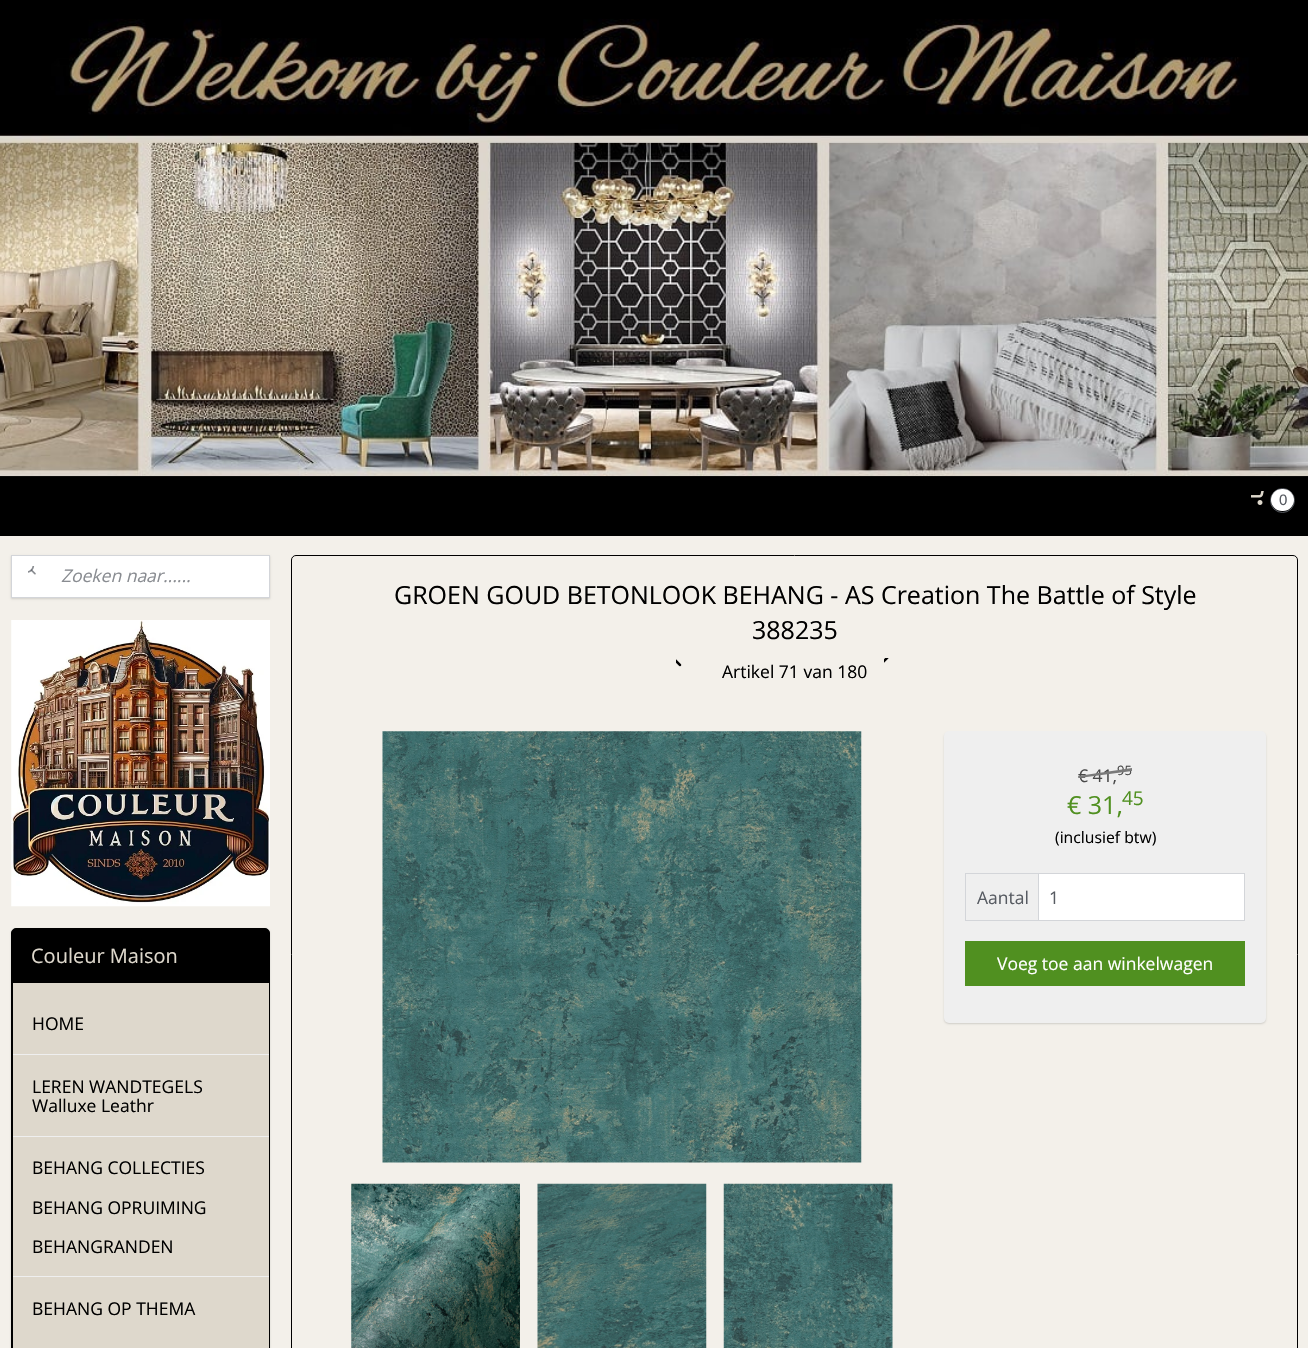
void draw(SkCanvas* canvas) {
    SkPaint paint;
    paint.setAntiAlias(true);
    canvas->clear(0xFF000000);
    canvas->drawImageRect(SkImages::DeferredFromEncodedData(SkData::MakeFromFileName("img1.png")), SkRect::MakeXYWH(0, 0, 1308, 477), SkSamplingOptions());
    canvas->drawImageRect(SkImages::DeferredFromEncodedData(SkData::MakeFromFileName("img2.png")), SkRect::MakeXYWH(1251, 491, 13, 14), SkSamplingOptions());
    paint.setStyle(SkPaint::kStroke_Style);
    paint.setStrokeWidth(1);
    paint.setColor(0xFF575B62);
    canvas->drawCircle(1282.5f, 500.5f, 12, paint);
    paint.setStyle(SkPaint::kFill_Style);
    paint.setColor(0xFFFFFFFF);
    canvas->drawRoundRect(SkRect::MakeXYWH(1271, 489, 23, 22), 11, 11, paint);
    SkFont font1(fontMgr->matchFamilyStyle("Liberation Sans", SkFontStyle::Normal()), 15);
    font1.setSubpixel(true);
    paint.setColor(0xFF575B62);
    canvas->drawString("0", 1279, 505, font1, paint);
    paint.setColor(0xFFF3F0EA);
    canvas->drawRect(SkRect::MakeXYWH(0, 536, 1308, 812), paint);
    paint.setColor(0x26000000);
    paint.setMaskFilter(SkMaskFilter::MakeBlur(kNormal_SkBlurStyle, 1));
    canvas->drawRect(SkRect::MakeXYWH(11, 556, 259, 43), paint);
    paint.setMaskFilter(nullptr);
    paint.setColor(0xFFFFFFFF);
    canvas->drawRect(SkRect::MakeXYWH(11.5f, 555.5f, 258, 42), paint);
    paint.setStyle(SkPaint::kStroke_Style);
    paint.setColor(0xFFD3D5D9);
    canvas->drawRect(SkRect::MakeXYWH(11.5f, 555.5f, 258, 42), paint);
    canvas->drawImageRect(SkImages::DeferredFromEncodedData(SkData::MakeFromFileName("img3.png")), SkRect::MakeXYWH(28, 566, 8, 9), SkSamplingOptions());
    SkFont font2(fontMgr->matchFamilyStyle("Open Sans", SkFontStyle::Italic()), 17.5f);
    font2.setSubpixel(true);
    paint.setStyle(SkPaint::kFill_Style);
    paint.setColor(0xFF898C91);
    canvas->drawString("Zoeken naar......", 61, 582, font2, paint);
    canvas->drawImageRect(SkImages::DeferredFromEncodedData(SkData::MakeFromFileName("img4.png")), SkRect::MakeXYWH(11, 620, 259, 287), SkSamplingOptions());
    paint.setColor(0x26000000);
    paint.setMaskFilter(SkMaskFilter::MakeBlur(kNormal_SkBlurStyle, 1));
    canvas->drawRoundRect(SkRect::MakeXYWH(11, 929, 259, 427), 5, 5, paint);
    paint.setMaskFilter(nullptr);
    paint.setColor(0xFF000000);
    canvas->drawRoundRect(SkRect::MakeXYWH(11.5f, 928.5f, 258, 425), 4.5f, 4.5f, paint);
    paint.setStyle(SkPaint::kStroke_Style);
    canvas->drawRoundRect(SkRect::MakeXYWH(11.5f, 928.5f, 258, 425), 4.5f, 4.5f, paint);
    SkFont font3(fontMgr->matchFamilyStyle("Open Sans", SkFontStyle::Normal()), 20);
    font3.setSubpixel(true);
    paint.setStyle(SkPaint::kFill_Style);
    paint.setColor(0xFFDED8CC);
    canvas->drawString("Couleur Maison", 31, 963, font3, paint);
    canvas->drawRect(SkRect::MakeXYWH(13, 983, 256, 365), paint);
    SkFont font4(fontMgr->matchFamilyStyle("Open Sans", SkFontStyle::Normal()), 17.5f);
    font4.setSubpixel(true);
    paint.setColor(0xFF000000);
    canvas->drawString("HOME", 32, 1030, font4, paint);
    paint.setColor(0xFFEFEFEF);
    canvas->drawRect(SkRect::MakeXYWH(13, 1054, 256, 1), paint);
    paint.setColor(0xFF000000);
    canvas->drawString("LEREN WANDTEGELS", 32, 1093, font4, paint);
    canvas->drawString("Walluxe Leathr", 32, 1112, font4, paint);
    paint.setColor(0xFFEFEFEF);
    canvas->drawRect(SkRect::MakeXYWH(13, 1136, 256, 1), paint);
    paint.setColor(0xFF000000);
    canvas->drawString("BEHANG COLLECTIES", 32, 1174, font4, paint);
    canvas->drawString("BEHANG OPRUIMING", 32, 1214, font4, paint);
    canvas->drawString("BEHANGRANDEN", 32, 1253, font4, paint);
    paint.setColor(0xFFEFEFEF);
    canvas->drawRect(SkRect::MakeXYWH(13, 1276, 256, 1), paint);
    paint.setColor(0xFF000000);
    canvas->drawString("BEHANG OP THEMA", 32, 1315, font4, paint);
    paint.setStyle(SkPaint::kStroke_Style);
    canvas->drawRoundRect(SkRect::MakeXYWH(291.5f, 555.5f, 1006, 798), 4.5f, 4.5f, paint);
    SkFont font5(fontMgr->matchFamilyStyle("Open Sans", SkFontStyle::Normal()), 25);
    font5.setSubpixel(true);
    paint.setStyle(SkPaint::kFill_Style);
    canvas->drawString("GROEN GOUD BETONLOOK BEHANG - AS Creation The Battle of Style", 394, 604, font5, paint);
    canvas->drawString("388235", 752, 639, font5, paint);
    canvas->drawImageRect(SkImages::DeferredFromEncodedData(SkData::MakeFromFileName("img5.png")), SkRect::MakeXYWH(676, 659, 6, 8), SkSamplingOptions());
    canvas->drawImageRect(SkImages::DeferredFromEncodedData(SkData::MakeFromFileName("img6.png")), SkRect::MakeXYWH(884, 658, 5, 5), SkSamplingOptions());
    canvas->drawString("Artikel 71 van 180", 722, 678, font4, paint);
    canvas->drawImageRect(SkImages::DeferredFromEncodedData(SkData::MakeFromFileName("img7.png")), SkRect::MakeXYWH(382, 731, 480, 432), SkSamplingOptions());
    canvas->drawImageRect(SkImages::DeferredFromEncodedData(SkData::MakeFromFileName("img8.png")), SkRect::MakeXYWH(351, 1183, 169, 165), SkSamplingOptions());
    canvas->drawImageRect(SkImages::DeferredFromEncodedData(SkData::MakeFromFileName("img9.png")), SkRect::MakeXYWH(537, 1183, 170, 165), SkSamplingOptions());
    canvas->drawImageRect(SkImages::DeferredFromEncodedData(SkData::MakeFromFileName("img10.png")), SkRect::MakeXYWH(723, 1183, 170, 165), SkSamplingOptions());
    paint.setColor(0x26000000);
    paint.setMaskFilter(SkMaskFilter::MakeBlur(kNormal_SkBlurStyle, 1));
    canvas->drawRoundRect(SkRect::MakeXYWH(944, 733, 322, 291), 5, 5, paint);
    paint.setMaskFilter(nullptr);
    paint.setColor(0xFFEFEFEF);
    canvas->drawRoundRect(SkRect::MakeXYWH(944, 731, 322, 292), 5, 5, paint);
    SkFont font6(fontMgr->matchFamilyStyle("Open Sans", SkFontStyle::Normal()), 13);
    font6.setSubpixel(true);
    paint.setColor(0xFF484848);
    canvas->drawString("95", 1117, 775, font6, paint);
    canvas->drawString("€ 41,", 1078, 782, font4, paint);
    paint.setColor(0xFF7A7A7A);
    canvas->drawPath(SkPathBuilder().moveTo(1078, 776).lineTo(1132, 768).lineTo(1132, 771).lineTo(1079, 778).close().detach(), paint);
    paint.setColor(0xFF509020);
    canvas->drawString("€ 31,", 1067, 814, font5, paint);
    SkFont font7(fontMgr->matchFamilyStyle("Open Sans", SkFontStyle::Normal()), 19);
    font7.setSubpixel(true);
    canvas->drawString("45", 1122, 805, font7, paint);
    SkFont font8(fontMgr->matchFamilyStyle("Open Sans", SkFontStyle::Normal()), 15.75f);
    font8.setSubpixel(true);
    paint.setColor(0xFF000000);
    canvas->drawString("(inclusief btw)", 1055, 843, font8, paint);
    paint.setColor(0xFFFFFFFF);
    canvas->drawRect(SkRect::MakeXYWH(1039, 874, 205, 46), paint);
    paint.setColor(0xFFD3D5D9);
    canvas->drawRect(SkRect::MakeXYWH(1038, 873, 1, 47), paint);
    canvas->drawRect(SkRect::MakeXYWH(965, 873, 280, 1), paint);
    canvas->drawRect(SkRect::MakeXYWH(1244, 873, 1, 48), paint);
    canvas->drawRect(SkRect::MakeXYWH(965, 920, 280, 1), paint);
    canvas->drawRect(SkRect::MakeXYWH(965, 873, 1, 48), paint);
    paint.setColor(0xFF575B62);
    canvas->drawString("Aantal", 977, 904, font4, paint);
    canvas->drawString("1", 1049, 904, font4, paint);
    paint.setColor(0xFF509020);
    canvas->drawRect(SkRect::MakeXYWH(965, 941, 280, 45), paint);
    paint.setColor(0xFFFFFFFF);
    canvas->drawString("Voeg toe aan winkelwagen", 997, 970, font4, paint);
}
